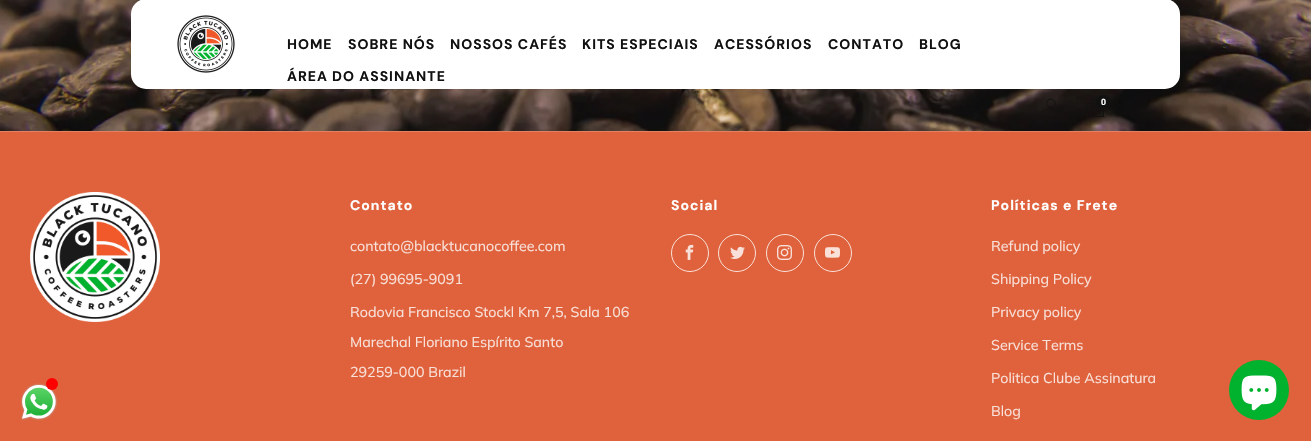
void draw(SkCanvas* canvas) {
    SkPaint paint;
    paint.setAntiAlias(true);
    auto spacedText = [&](const char* s, float x, float y, const SkFont& font, const SkPaint& ink, float letter, float word) {
        std::vector<SkGlyphID> glyphs(font.countText(s, strlen(s), SkTextEncoding::kUTF8));
        std::vector<float> xs(glyphs.size());
        font.textToGlyphs(s, strlen(s), SkTextEncoding::kUTF8, glyphs);
        font.getXPos(glyphs, xs, x);
        float extra = 0;
        for (size_t i = 0; i < glyphs.size(); i++) {
            xs[i] += extra;
            extra += letter + word * (glyphs[i] == font.unicharToGlyph(' '));
        }
        canvas->drawTextBlob(SkTextBlob::MakeFromPosHGlyphs(glyphs, xs, y, font), 0, 0, ink);
    };
    canvas->clear(0xFFDF623C);
    canvas->drawImageRect(SkImages::DeferredFromEncodedData(SkData::MakeFromFileName("img1.png")), SkRect::MakeXYWH(20, 383, 38, 38), SkSamplingOptions());
    paint.setColor(0xFFFF0000);
    canvas->drawCircle(52, 384, 6, paint);
    canvas->drawImageRect(SkImages::DeferredFromEncodedData(SkData::MakeFromFileName("img2.png")), SkRect::MakeXYWH(0, 0, 1311, 131), SkSamplingOptions());
    paint.setColor(0xFFFFFFFF);
    canvas->drawRoundRect(SkRect::MakeXYWH(131, -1, 1049, 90), 15, 15, paint);
    canvas->drawImageRect(SkImages::DeferredFromEncodedData(SkData::MakeFromFileName("img3.png")), SkRect::MakeXYWH(177, 15, 58, 58), SkSamplingOptions());
    SkFont font1(fontMgr->matchFamilyStyle("DM Sans", SkFontStyle::Bold()), 14);
    font1.setSubpixel(true);
    paint.setColor(0xFF111111);
    spacedText("HOME", 287, 49, font1, paint, 1, 0);
    spacedText("SOBRE NÓS", 348, 49, font1, paint, 1, 0);
    spacedText("NOSSOS CAFÉS", 450, 49, font1, paint, 1, 0);
    spacedText("KITS ESPECIAIS", 582, 49, font1, paint, 1, 0);
    spacedText("ACESSÓRIOS", 714, 49, font1, paint, 1, 0);
    spacedText("CONTATO", 828, 49, font1, paint, 1, 0);
    spacedText("BLOG", 919, 49, font1, paint, 1, 0);
    spacedText("ÁREA DO ASSINANTE", 287, 81, font1, paint, 1, 0);
    canvas->drawImageRect(SkImages::DeferredFromEncodedData(SkData::MakeFromFileName("img4.png")), SkRect::MakeXYWH(1042, 98, 18, 19), SkSamplingOptions());
    canvas->drawImageRect(SkImages::DeferredFromEncodedData(SkData::MakeFromFileName("img5.png")), SkRect::MakeXYWH(1086, 99, 18, 18), SkSamplingOptions());
    canvas->drawCircle(1103, 102, 7, paint);
    SkFont font2(fontMgr->matchFamilyStyle("Liberation Sans", SkFontStyle::Bold()), 9);
    font2.setSubpixel(true);
    paint.setColor(0xFFFFFFFF);
    canvas->drawString("0", 1101, 105, font2, paint);
    canvas->drawImageRect(SkImages::DeferredFromEncodedData(SkData::MakeFromFileName("img6.png")), SkRect::MakeXYWH(1146, 104, 1, 6), SkSamplingOptions());
    paint.setColor(0xFFE58163);
    canvas->drawRect(SkRect::MakeXYWH(0, 131, 1311, 1), paint);
    canvas->drawImageRect(SkImages::DeferredFromEncodedData(SkData::MakeFromFileName("img7.png")), SkRect::MakeXYWH(30, 192, 130, 130), SkSamplingOptions());
    paint.setColor(0xFFFFFFFF);
    spacedText("Contato", 350, 210, font1, paint, 1, 0);
    SkFont font3(fontMgr->matchFamilyStyle("Muli", SkFontStyle::Normal()), 14.25f);
    font3.setSubpixel(true);
    paint.setColor(0xFFF9E0D8);
    canvas->drawString("contato@blacktucanocoffee.com", 350, 251, font3, paint);
    canvas->drawString("(27) 99695-9091", 350, 284, font3, paint);
    canvas->drawString("Rodovia Francisco Stockl Km 7,5, Sala 106", 350, 317, font3, paint);
    canvas->drawString("Marechal Floriano Espírito Santo", 350, 347, font3, paint);
    canvas->drawString("29259-000 Brazil", 350, 377, font3, paint);
    paint.setColor(0xFFFFFFFF);
    spacedText("Social", 671, 210, font1, paint, 1, 0);
    paint.setStyle(SkPaint::kStroke_Style);
    paint.setStrokeWidth(1);
    paint.setColor(0xFFF9E0D8);
    canvas->drawCircle(690, 253, 18.5f, paint);
    canvas->drawImageRect(SkImages::DeferredFromEncodedData(SkData::MakeFromFileName("img8.png")), SkRect::MakeXYWH(685, 244, 9, 16), SkSamplingOptions());
    canvas->drawCircle(737, 253, 18.5f, paint);
    canvas->drawImageRect(SkImages::DeferredFromEncodedData(SkData::MakeFromFileName("img9.png")), SkRect::MakeXYWH(730, 246, 15, 13), SkSamplingOptions());
    canvas->drawCircle(785, 253, 18.5f, paint);
    canvas->drawImageRect(SkImages::DeferredFromEncodedData(SkData::MakeFromFileName("img10.png")), SkRect::MakeXYWH(777, 245, 15, 15), SkSamplingOptions());
    canvas->drawCircle(833, 253, 18.5f, paint);
    canvas->drawImageRect(SkImages::DeferredFromEncodedData(SkData::MakeFromFileName("img11.png")), SkRect::MakeXYWH(825, 247, 15, 11), SkSamplingOptions());
    paint.setStyle(SkPaint::kFill_Style);
    paint.setColor(0xFFFFFFFF);
    spacedText("Políticas e Frete", 991, 210, font1, paint, 1, 0);
    paint.setColor(0xFFF9E0D8);
    canvas->drawString("Refund policy", 991, 251, font3, paint);
    canvas->drawString("Shipping Policy", 991, 284, font3, paint);
    canvas->drawString("Privacy policy", 991, 317, font3, paint);
    canvas->drawString("Service Terms", 991, 350, font3, paint);
    canvas->drawString("Politica Clube Assinatura", 991, 383, font3, paint);
    canvas->drawString("Blog", 991, 416, font3, paint);
    paint.setColor(0xFF00B22D);
    canvas->drawCircle(1259, 390, 30, paint);
    canvas->drawImageRect(SkImages::DeferredFromEncodedData(SkData::MakeFromFileName("img12.png")), SkRect::MakeXYWH(1241, 375, 36, 36), SkSamplingOptions());
}
